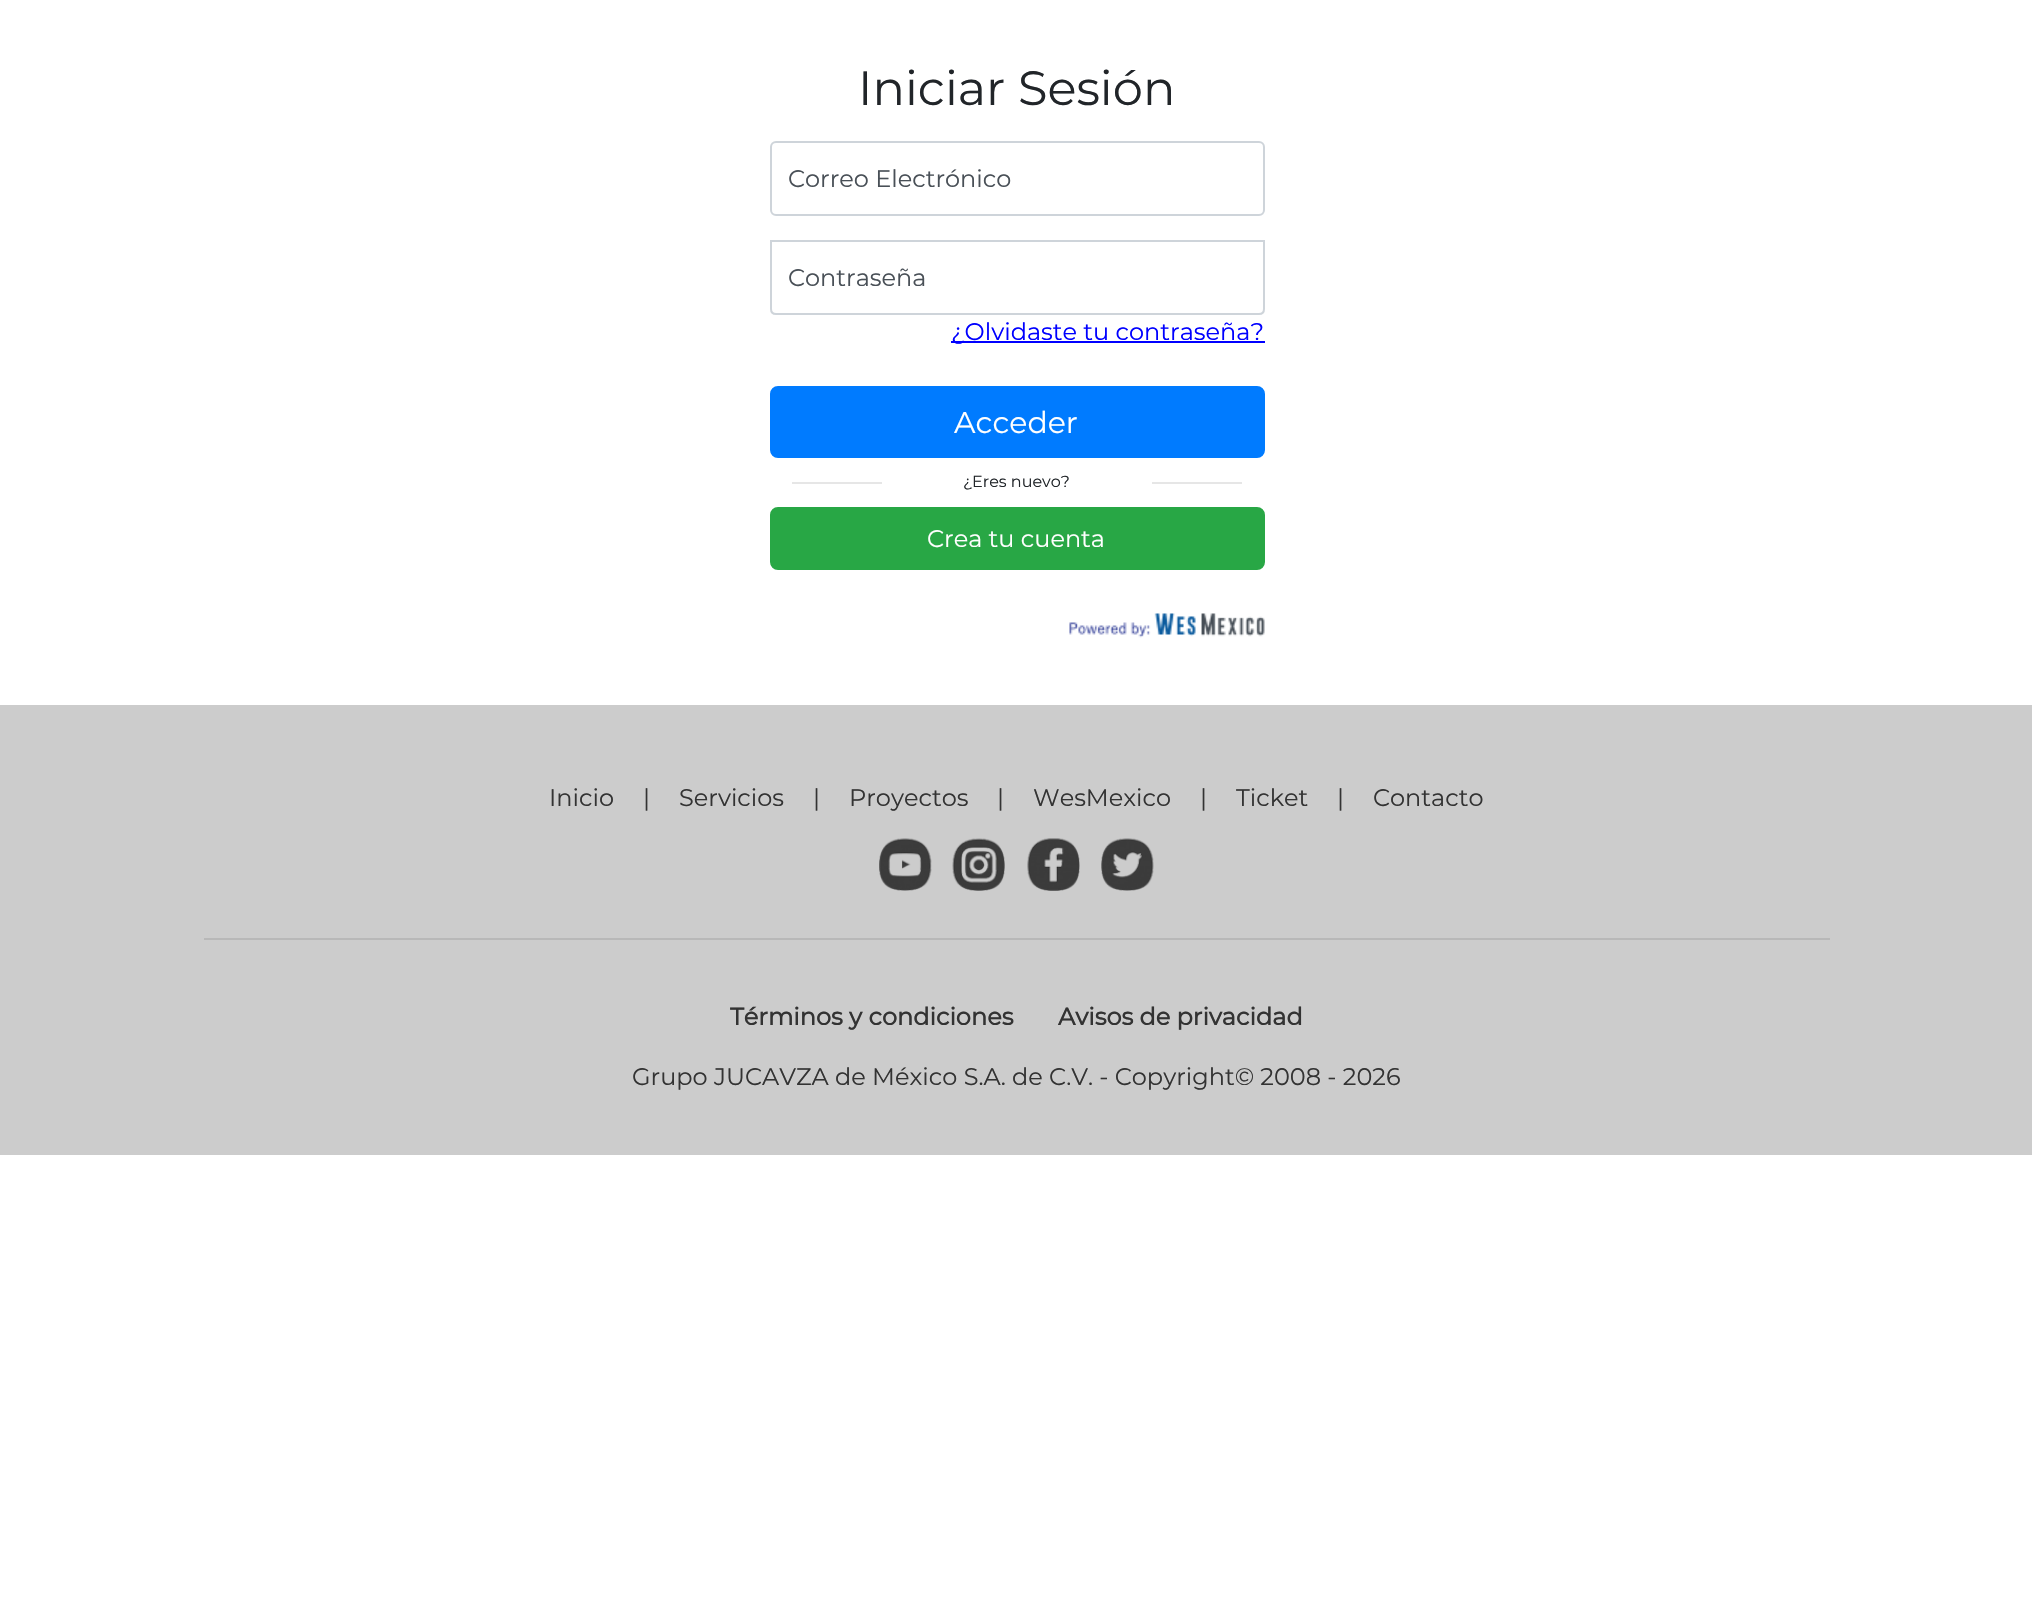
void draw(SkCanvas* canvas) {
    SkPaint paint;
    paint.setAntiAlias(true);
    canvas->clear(0xFFFFFFFF);
    SkFont font1(fontMgr->matchFamilyStyle("Montserrat", SkFontStyle(100, SkFontStyle::kNormal_Width, SkFontStyle::kUpright_Slant)), 48);
    font1.setSubpixel(true);
    paint.setColor(0xFF212529);
    canvas->drawString("Iniciar Sesión", 858, 105, font1, paint);
    paint.setStyle(SkPaint::kStroke_Style);
    paint.setStrokeWidth(2);
    paint.setColor(0xFFCED4DA);
    canvas->drawRoundRect(SkRect::MakeXYWH(771, 142, 493, 73), 5, 5, paint);
    SkFont font2(fontMgr->matchFamilyStyle("Montserrat", SkFontStyle(100, SkFontStyle::kNormal_Width, SkFontStyle::kUpright_Slant)), 24);
    font2.setSubpixel(true);
    paint.setStyle(SkPaint::kFill_Style);
    paint.setColor(0xFF495057);
    canvas->drawString("Correo Electrónico", 788, 187, font2, paint);
    paint.setStyle(SkPaint::kStroke_Style);
    paint.setColor(0xFFCED4DA);
    canvas->drawPath(SkPathBuilder().moveTo(771, 241).lineTo(1264, 241).lineTo(1264, 309).cubicTo(1264, 312, 1262, 314, 1259, 314).lineTo(776, 314).cubicTo(773, 314, 771, 312, 771, 309).close().detach(), paint);
    paint.setStyle(SkPaint::kFill_Style);
    paint.setColor(0xFF495057);
    canvas->drawString("Contraseña", 788, 286, font2, paint);
    paint.setColor(0xFF0000FF);
    canvas->drawRect(SkRect::MakeXYWH(951, 341, 314, 2), paint);
    canvas->drawString("¿Olvidaste tu contraseña?", 951, 340, font2, paint);
    paint.setColor(0xFF007BFF);
    canvas->drawRoundRect(SkRect::MakeXYWH(771, 387, 493, 70), 7, 7, paint);
    paint.setStyle(SkPaint::kStroke_Style);
    canvas->drawRoundRect(SkRect::MakeXYWH(771, 387, 493, 70), 7, 7, paint);
    SkFont font3(fontMgr->matchFamilyStyle("Montserrat", SkFontStyle(100, SkFontStyle::kNormal_Width, SkFontStyle::kUpright_Slant)), 30);
    font3.setSubpixel(true);
    paint.setStyle(SkPaint::kFill_Style);
    paint.setColor(0xFFFFFFFF);
    canvas->drawString("Acceder", 954, 433, font3, paint);
    paint.setColor(0xFFE6E6E6);
    canvas->drawRect(SkRect::MakeXYWH(792, 482, 90, 2), paint);
    SkFont font4(fontMgr->matchFamilyStyle("Montserrat", SkFontStyle(100, SkFontStyle::kNormal_Width, SkFontStyle::kUpright_Slant)), 16);
    font4.setSubpixel(true);
    paint.setColor(0xFF212529);
    canvas->drawString("¿Eres nuevo?", 963, 487, font4, paint);
    paint.setColor(0xFFE6E6E6);
    canvas->drawRect(SkRect::MakeXYWH(1152, 482, 90, 2), paint);
    paint.setColor(0xFF28A745);
    canvas->drawRoundRect(SkRect::MakeXYWH(771, 508, 493, 61), 7, 7, paint);
    paint.setStyle(SkPaint::kStroke_Style);
    canvas->drawRoundRect(SkRect::MakeXYWH(771, 508, 493, 61), 7, 7, paint);
    paint.setStyle(SkPaint::kFill_Style);
    paint.setColor(0xFFFFFFFF);
    canvas->drawString("Crea tu cuenta", 927, 547, font2, paint);
    canvas->drawImageRect(SkImages::DeferredFromEncodedData(SkData::MakeFromFileName("img1.png")), SkRect::MakeXYWH(1069, 613, 196, 25), SkSamplingOptions());
    paint.setColor(0xFFCCCCCC);
    canvas->drawRect(SkRect::MakeXYWH(0, 705, 2032, 450), paint);
    paint.setColor(0xFF333333);
    canvas->drawString("Inicio", 549, 806, font2, paint);
    canvas->drawString("|", 643, 806, font2, paint);
    canvas->drawString("Servicios", 679, 806, font2, paint);
    canvas->drawString("|", 813, 806, font2, paint);
    canvas->drawString("Proyectos", 849, 806, font2, paint);
    canvas->drawString("|", 997, 806, font2, paint);
    canvas->drawString("WesMexico", 1033, 806, font2, paint);
    canvas->drawString("|", 1200, 806, font2, paint);
    canvas->drawString("Ticket", 1236, 806, font2, paint);
    canvas->drawString("|", 1337, 806, font2, paint);
    canvas->drawString("Contacto", 1373, 806, font2, paint);
    canvas->drawImageRect(SkImages::DeferredFromEncodedData(SkData::MakeFromFileName("img2.png")), SkRect::MakeXYWH(879, 838, 53, 53), SkSamplingOptions());
    canvas->drawImageRect(SkImages::DeferredFromEncodedData(SkData::MakeFromFileName("img3.png")), SkRect::MakeXYWH(952, 838, 53, 53), SkSamplingOptions());
    canvas->drawImageRect(SkImages::DeferredFromEncodedData(SkData::MakeFromFileName("img4.png")), SkRect::MakeXYWH(1027, 838, 53, 53), SkSamplingOptions());
    canvas->drawImageRect(SkImages::DeferredFromEncodedData(SkData::MakeFromFileName("img5.png")), SkRect::MakeXYWH(1101, 838, 53, 53), SkSamplingOptions());
    paint.setColor(0xFFB8B8B8);
    canvas->drawRect(SkRect::MakeXYWH(204, 938, 1626, 2), paint);
    SkFont font5(fontMgr->matchFamilyStyle("Montserrat", SkFontStyle::Bold()), 24);
    font5.setSubpixel(true);
    paint.setColor(0xFF333333);
    canvas->drawString("Términos y condiciones", 730, 1025, font5, paint);
    canvas->drawString("Avisos de privacidad", 1058, 1025, font5, paint);
    canvas->drawString("Grupo JUCAVZA de México S.A. de C.V. - Copyright© 2008 - 2026", 632, 1085, font2, paint);
}
